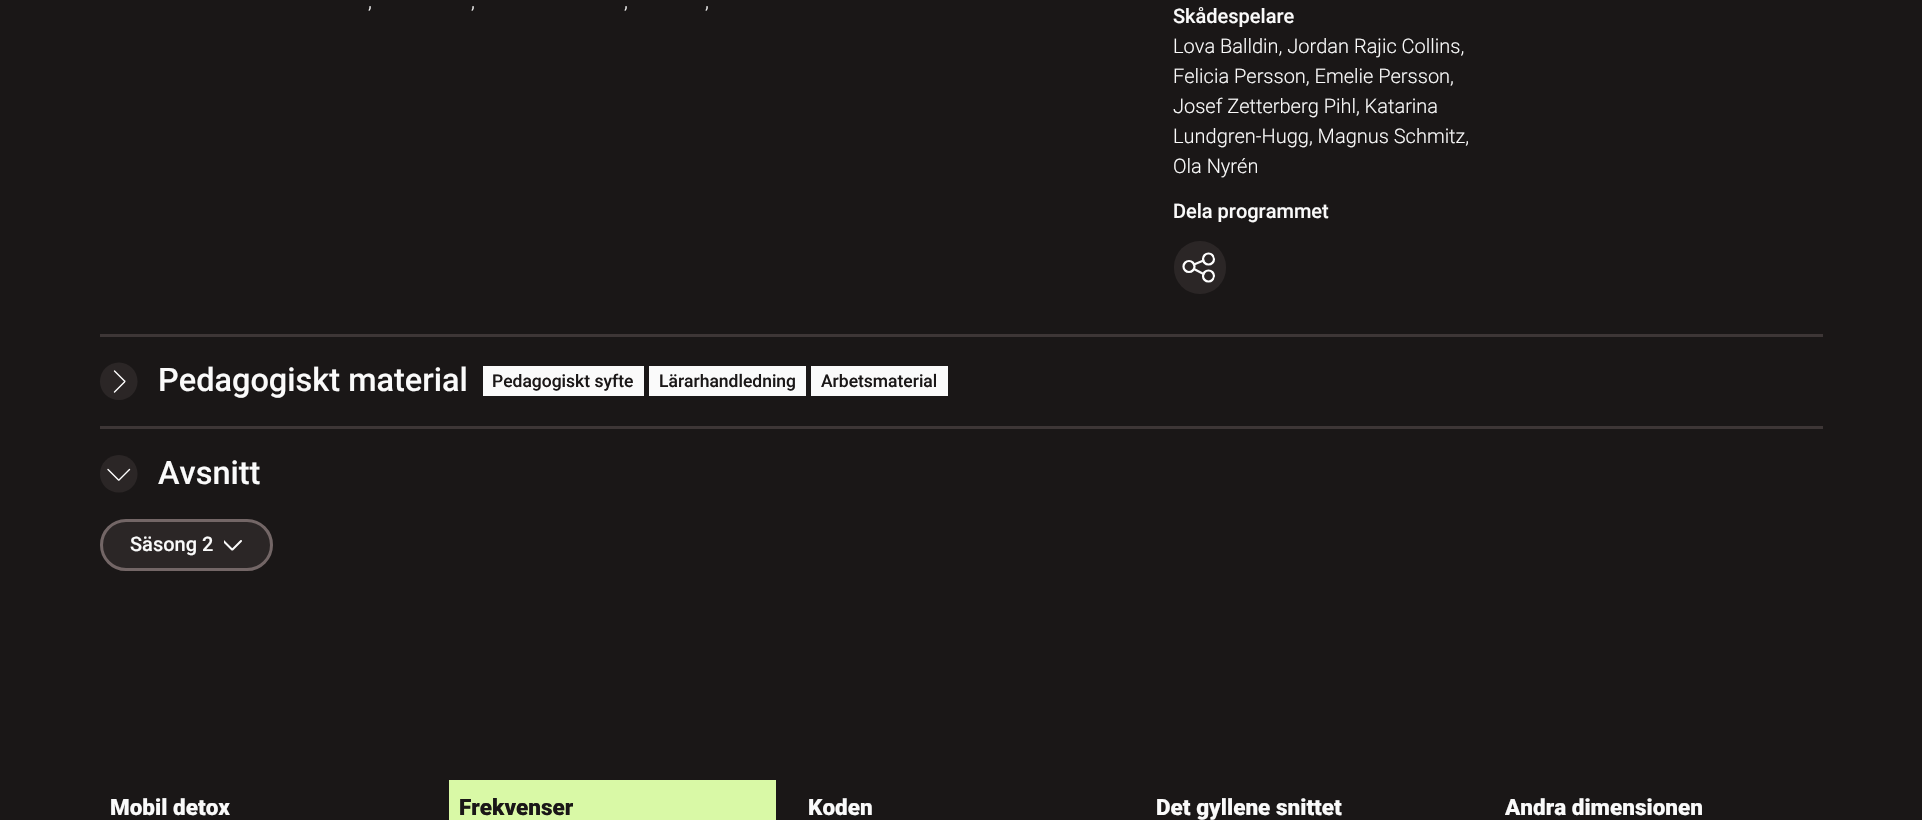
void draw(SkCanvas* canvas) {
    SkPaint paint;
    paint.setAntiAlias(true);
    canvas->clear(0xFF1A1717);
    SkFont font1(fontMgr->matchFamilyStyle("Roboto", SkFontStyle(300, SkFontStyle::kNormal_Width, SkFontStyle::kUpright_Slant)), 20);
    font1.setSubpixel(true);
    paint.setColor(0xFFFAFAFA);
    canvas->drawString(",", 368, 8, font1, paint);
    canvas->drawString(",", 471, 8, font1, paint);
    canvas->drawString(",", 624, 8, font1, paint);
    canvas->drawString(",", 705, 8, font1, paint);
    SkFont font2(fontMgr->matchFamilyStyle("Roboto", SkFontStyle(500, SkFontStyle::kNormal_Width, SkFontStyle::kUpright_Slant)), 20);
    font2.setSubpixel(true);
    canvas->drawString("Skådespelare", 1173, 23, font2, paint);
    canvas->drawString("Lova Balldin, Jordan Rajic Collins,", 1173, 53, font1, paint);
    canvas->drawString("Felicia Persson, Emelie Persson,", 1173, 83, font1, paint);
    canvas->drawString("Josef Zetterberg Pihl, Katarina", 1173, 113, font1, paint);
    canvas->drawString("Lundgren-Hugg, Magnus Schmitz,", 1173, 143, font1, paint);
    canvas->drawString("Ola Nyrén", 1173, 173, font1, paint);
    canvas->drawString("Dela programmet", 1173, 218, font2, paint);
    paint.setColor(0xFF2B2626);
    canvas->drawRoundRect(SkRect::MakeXYWH(1174, 241, 52, 53), 26, 26, paint);
    paint.setStyle(SkPaint::kStroke_Style);
    paint.setStrokeWidth(2.2f);
    paint.setColor(0xFFFFFFFF);
    canvas->drawCircle(1189, 266.5f, 5.5f, paint);
    canvas->save();
    canvas->clipPath(SkPathBuilder().moveTo(1199, 242.5f).cubicTo(1208.5f, 242.5f, 1216, 253.5f, 1216, 267.5f).cubicTo(1216, 281.5f, 1208.5f, 292.5f, 1199, 292.5f).cubicTo(1189, 292.5f, 1181, 281.5f, 1181, 267.5f).cubicTo(1181, 253.5f, 1189, 242.5f, 1199, 242.5f).close().detach(), true);
    canvas->drawCircle(1208.5f, 259, 5.5f, paint);
    canvas->drawCircle(1208.5f, 276, 5.5f, paint);
    canvas->restore();
    paint.setStrokeCap(SkPaint::kRound_Cap);
    paint.setStrokeJoin(SkPaint::kRound_Join);
    paint.setColor(0xFFFAFAFA);
    canvas->drawPath(SkPathBuilder().moveTo(1194, 264.5f).lineTo(1203.5f, 260.5f).moveTo(1194, 269).lineTo(1203.5f, 274).detach(), paint);
    paint.setStyle(SkPaint::kFill_Style);
    paint.setColor(0xFF3D3636);
    canvas->drawRect(SkRect::MakeXYWH(100, 334, 1723, 3), paint);
    paint.setColor(0xFF2B2626);
    canvas->drawPath(SkPathBuilder().moveTo(137.5f, 381.5f).cubicTo(137.5f, 392, 129, 400, 119, 400).cubicTo(108.5f, 400, 100, 392, 100, 381.5f).cubicTo(100, 371, 108.5f, 362.5f, 119, 362.5f).cubicTo(129, 362.5f, 137.5f, 371, 137.5f, 381.5f).close().detach(), paint);
    paint.setStyle(SkPaint::kStroke_Style);
    paint.setStrokeWidth(1.4f);
    paint.setColor(0xFFFFFFFF);
    canvas->drawPath(SkPathBuilder().moveTo(114.5f, 392).lineTo(124.5f, 382).cubicTo(125, 381.5f, 125, 381, 124.5f, 381).lineTo(114.5f, 371).detach(), paint);
    SkFont font3(fontMgr->matchFamilyStyle("Roboto", SkFontStyle(500, SkFontStyle::kNormal_Width, SkFontStyle::kUpright_Slant)), 32.5f);
    font3.setSubpixel(true);
    paint.setStyle(SkPaint::kFill_Style);
    paint.setColor(0xFFFAFAFA);
    canvas->drawString("Pedagogiskt material", 158, 391, font3, paint);
    canvas->drawRect(SkRect::MakeXYWH(483, 366, 161, 30), paint);
    SkFont font4(fontMgr->matchFamilyStyle("Roboto", SkFontStyle(500, SkFontStyle::kNormal_Width, SkFontStyle::kUpright_Slant)), 17.5f);
    font4.setSubpixel(true);
    paint.setColor(0xFF1A1717);
    canvas->drawString("Pedagogiskt syfte", 492, 387, font4, paint);
    paint.setColor(0xFFFAFAFA);
    canvas->drawRect(SkRect::MakeXYWH(649, 366, 157, 30), paint);
    paint.setColor(0xFF1A1717);
    canvas->drawString("Lärarhandledning", 659, 387, font4, paint);
    paint.setColor(0xFFFAFAFA);
    canvas->drawRect(SkRect::MakeXYWH(811, 366, 137, 30), paint);
    paint.setColor(0xFF1A1717);
    canvas->drawString("Arbetsmaterial", 821, 387, font4, paint);
    paint.setColor(0xFF3D3636);
    canvas->drawRect(SkRect::MakeXYWH(100, 426, 1723, 3), paint);
    paint.setColor(0xFF2B2626);
    canvas->drawPath(SkPathBuilder().moveTo(119, 492.5f).cubicTo(108.5f, 492.5f, 100, 484.5f, 100, 474).cubicTo(100, 463.5f, 108.5f, 455, 119, 455).cubicTo(129, 455, 137.5f, 463.5f, 137.5f, 474).cubicTo(137.5f, 484.5f, 129, 492.5f, 119, 492.5f).close().detach(), paint);
    paint.setStyle(SkPaint::kStroke_Style);
    paint.setColor(0xFFFFFFFF);
    canvas->drawPath(SkPathBuilder().moveTo(108, 469.5f).lineTo(118.5f, 480).cubicTo(118.5f, 480, 119, 480, 119, 480).lineTo(129.5f, 469.5f).detach(), paint);
    paint.setStyle(SkPaint::kFill_Style);
    paint.setColor(0xFFFAFAFA);
    canvas->drawString("Avsnitt", 158, 484, font3, paint);
    paint.setColor(0xFF2B2626);
    canvas->drawRoundRect(SkRect::MakeXYWH(101.5f, 520.5f, 170, 49), 24.5f, 24.5f, paint);
    paint.setStyle(SkPaint::kStroke_Style);
    paint.setStrokeWidth(3);
    paint.setStrokeCap(SkPaint::kButt_Cap);
    paint.setStrokeJoin(SkPaint::kMiter_Join);
    paint.setColor(0xFF736666);
    canvas->drawRoundRect(SkRect::MakeXYWH(101.5f, 520.5f, 170, 49), 24.5f, 24.5f, paint);
    paint.setStyle(SkPaint::kFill_Style);
    paint.setColor(0xFFFAFAFA);
    canvas->drawString("Säsong 2", 130, 551, font2, paint);
    canvas->save();
    canvas->clipRect(SkRect::MakeXYWH(224, 536, 19, 19));
    paint.setStyle(SkPaint::kStroke_Style);
    paint.setStrokeWidth(2);
    paint.setStrokeCap(SkPaint::kRound_Cap);
    paint.setStrokeJoin(SkPaint::kRound_Join);
    canvas->drawPath(SkPathBuilder().moveTo(223.5f, 541).lineTo(232, 549.5f).cubicTo(232, 549.5f, 232.5f, 549.5f, 232.5f, 549.5f).lineTo(241, 541).detach(), paint);
    canvas->restore();
    SkFont font5(fontMgr->matchFamilyStyle("Roboto", SkFontStyle(900, SkFontStyle::kNormal_Width, SkFontStyle::kUpright_Slant)), 22.5f);
    font5.setSubpixel(true);
    paint.setStyle(SkPaint::kFill_Style);
    canvas->drawString("Mobil detox", 110, 815, font5, paint);
    paint.setColor(0xFFD9F9A6);
    canvas->drawRect(SkRect::MakeXYWH(449, 780, 327, 40), paint);
    paint.setColor(0xFF1A1717);
    canvas->drawString("Frekvenser", 459, 815, font5, paint);
    paint.setColor(0xFFFAFAFA);
    canvas->drawString("Koden", 808, 815, font5, paint);
    canvas->drawString("Det gyllene snittet", 1156, 815, font5, paint);
    canvas->drawString("Andra dimensionen", 1505, 815, font5, paint);
}
